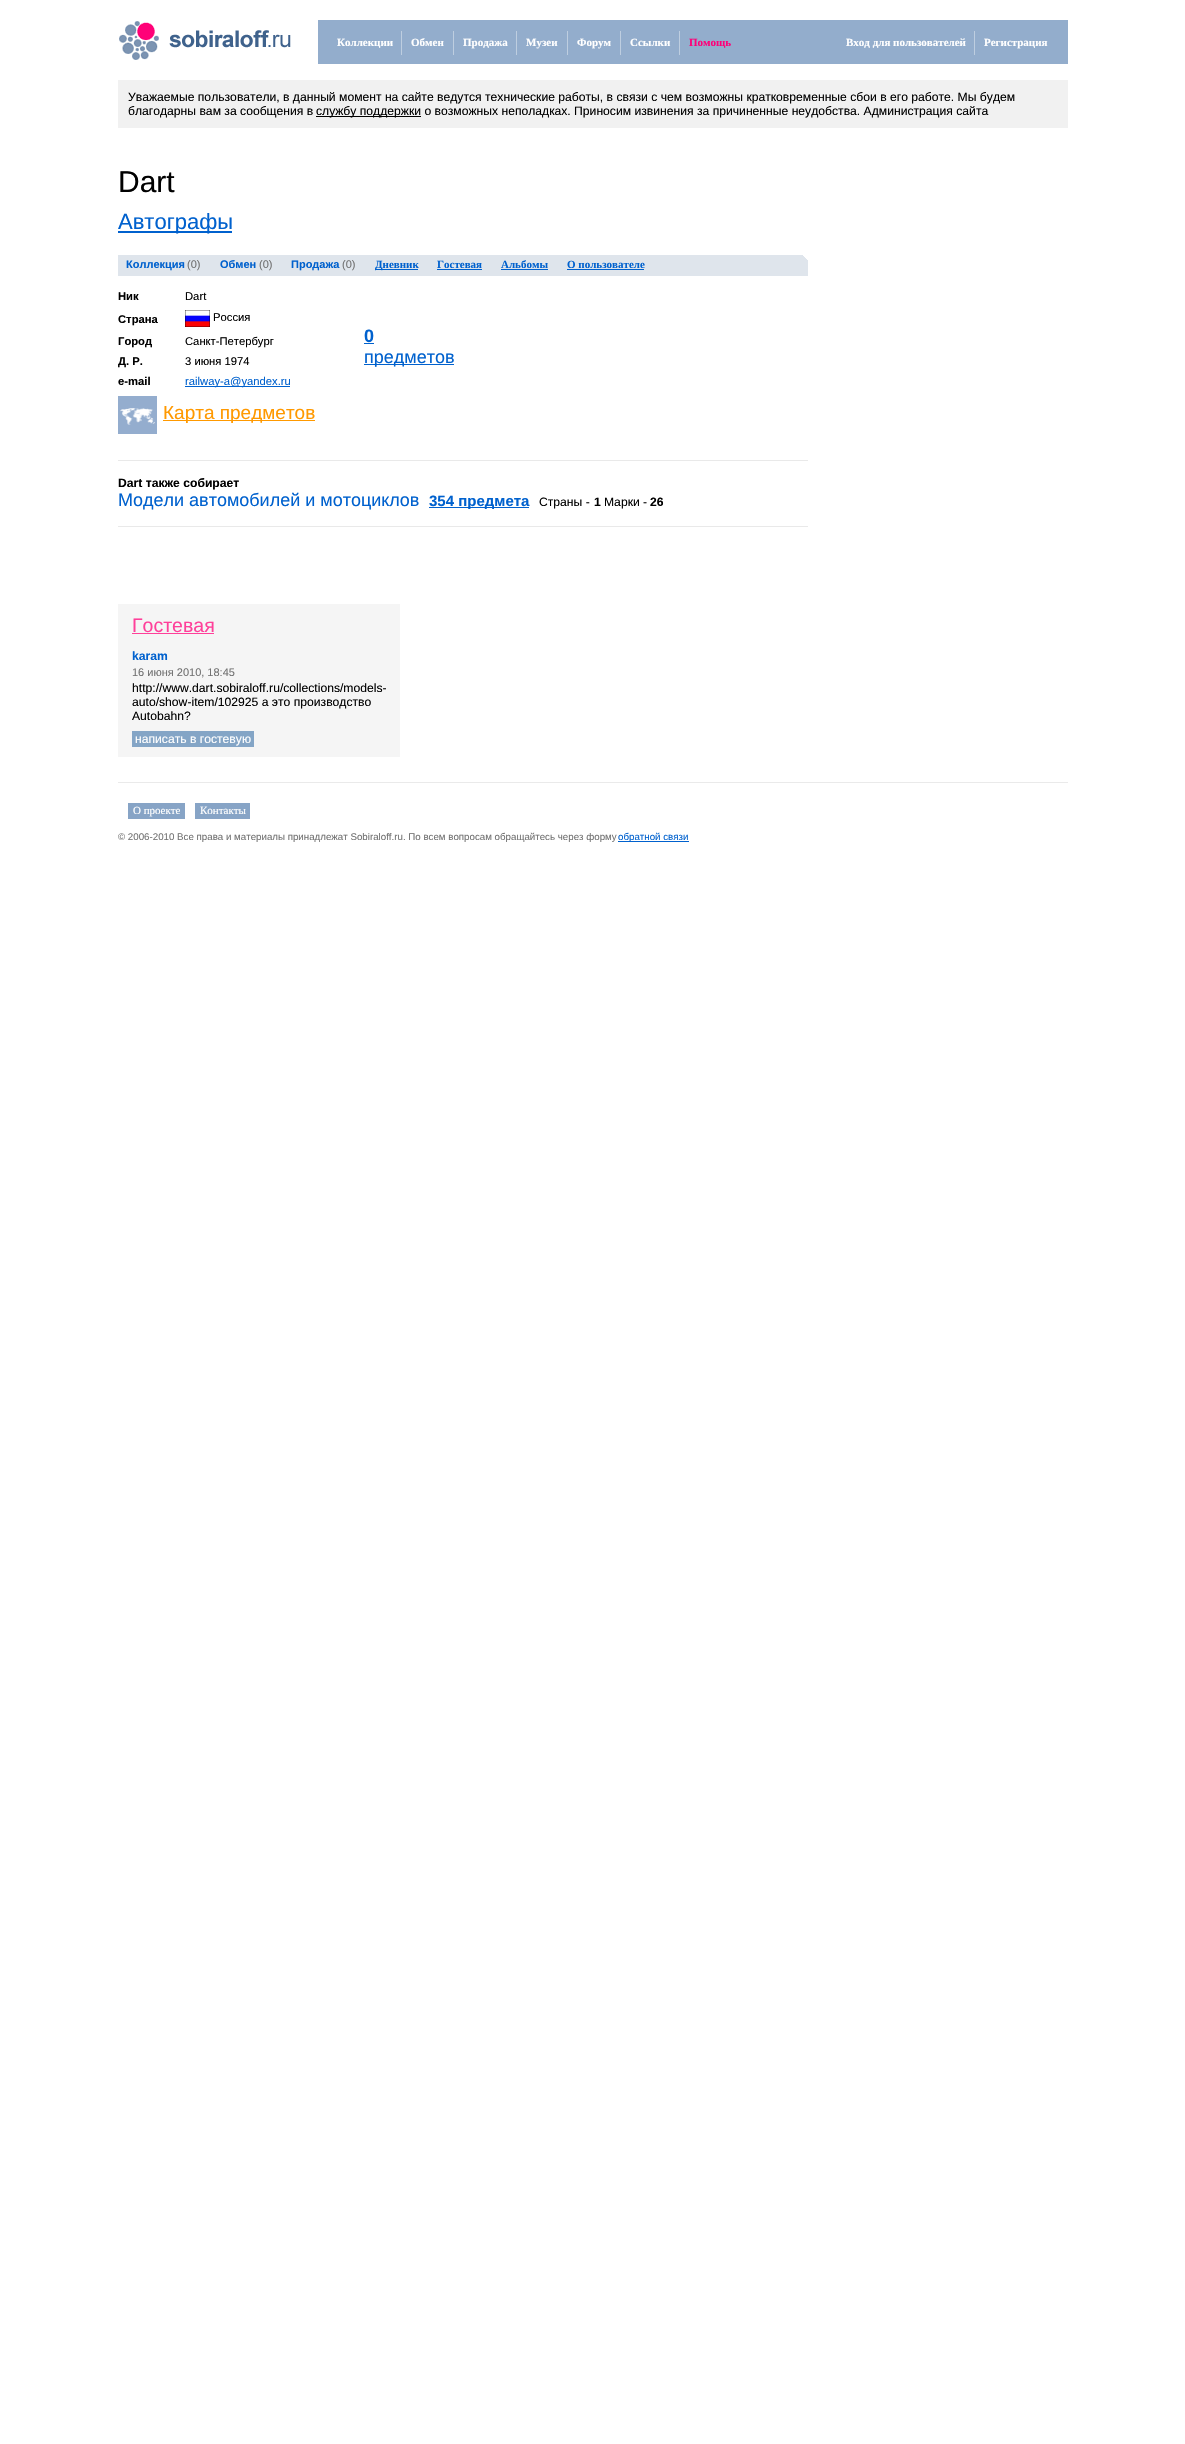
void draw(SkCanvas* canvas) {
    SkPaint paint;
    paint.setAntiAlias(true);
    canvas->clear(0xFFFFFFFF);
    canvas->drawImageRect(SkImages::DeferredFromEncodedData(SkData::MakeFromFileName("img1.png")), SkRect::MakeXYWH(118, 21, 173, 39), SkSamplingOptions());
    paint.setColor(0xFF93ADCC);
    canvas->drawRect(SkRect::MakeXYWH(318, 20, 750, 44), paint);
    SkFont font1(fontMgr->matchFamilyStyle("Liberation Serif", SkFontStyle::Bold()), 11);
    font1.setSubpixel(true);
    paint.setColor(0xFFFFFFFF);
    canvas->drawString("Коллекции", 337, 46, font1, paint);
    paint.setColor(0xFFBECEE0);
    canvas->drawRect(SkRect::MakeXYWH(401, 31, 1, 24), paint);
    paint.setColor(0xFFFFFFFF);
    canvas->drawString("Обмен", 411, 46, font1, paint);
    paint.setColor(0xFFBECEE0);
    canvas->drawRect(SkRect::MakeXYWH(453, 31, 1, 24), paint);
    paint.setColor(0xFFFFFFFF);
    canvas->drawString("Продажа", 463, 46, font1, paint);
    paint.setColor(0xFFBECEE0);
    canvas->drawRect(SkRect::MakeXYWH(516, 31, 1, 24), paint);
    paint.setColor(0xFFFFFFFF);
    canvas->drawString("Музеи", 526, 46, font1, paint);
    paint.setColor(0xFFBECEE0);
    canvas->drawRect(SkRect::MakeXYWH(567, 31, 1, 24), paint);
    paint.setColor(0xFFFFFFFF);
    canvas->drawString("Форум", 577, 46, font1, paint);
    paint.setColor(0xFFBECEE0);
    canvas->drawRect(SkRect::MakeXYWH(620, 31, 1, 24), paint);
    paint.setColor(0xFFFFFFFF);
    canvas->drawString("Ссылки", 630, 46, font1, paint);
    paint.setColor(0xFFBECEE0);
    canvas->drawRect(SkRect::MakeXYWH(679, 31, 1, 24), paint);
    paint.setColor(0xFFFF0078);
    canvas->drawString("Помощь", 689, 46, font1, paint);
    paint.setColor(0xFFFFFFFF);
    canvas->drawString("Вход для пользователей", 846, 46, font1, paint);
    paint.setColor(0xFFBECEE0);
    canvas->drawRect(SkRect::MakeXYWH(974, 31, 1, 24), paint);
    paint.setColor(0xFFFFFFFF);
    canvas->drawString("Регистрация", 984, 46, font1, paint);
    paint.setColor(0xFFF1F1F1);
    canvas->drawRect(SkRect::MakeXYWH(118, 80, 950, 48), paint);
    SkFont font2(fontMgr->matchFamilyStyle("Liberation Sans", SkFontStyle::Normal()), 12.15f);
    font2.setSubpixel(true);
    paint.setColor(0xFF000000);
    canvas->drawString("Уважаемые пользователи, в данный момент на сайте ведутся технические работы, в связи с чем возможны кратковременные сбои в его работе. Мы будем", 128, 101, font2, paint);
    canvas->drawString("благодарны вам за сообщения в", 128, 115, font2, paint);
    canvas->drawRect(SkRect::MakeXYWH(316, 116, 105, 1), paint);
    canvas->drawString("службу поддержки о возможных неполадках. Приносим извинения за причиненные неудобства. Администрация сайта", 316, 115, font2, paint);
    SkFont font3(fontMgr->matchFamilyStyle("Liberation Sans", SkFontStyle::Normal()), 30);
    font3.setSubpixel(true);
    canvas->drawString("Dart", 118, 192, font3, paint);
    paint.setColor(0xFF0061CE);
    canvas->drawRect(SkRect::MakeXYWH(118, 231, 114, 2), paint);
    SkFont font4(fontMgr->matchFamilyStyle("Liberation Sans", SkFontStyle::Normal()), 22);
    font4.setSubpixel(true);
    canvas->drawString("Автографы", 118, 229, font4, paint);
    paint.setColor(0xFFDFE5EC);
    canvas->drawRect(SkRect::MakeXYWH(118, 255, 690, 21), paint);
    canvas->drawImageRect(SkImages::DeferredFromEncodedData(SkData::MakeFromFileName("img2.png")), SkRect::MakeXYWH(803, 255, 5, 5), SkSamplingOptions());
    SkFont font5(fontMgr->matchFamilyStyle("Liberation Sans", SkFontStyle::Bold()), 11);
    font5.setSubpixel(true);
    paint.setColor(0xFF0061CE);
    canvas->drawString("Коллекция", 126, 268, font5, paint);
    SkFont font6(fontMgr->matchFamilyStyle("Liberation Sans", SkFontStyle::Normal()), 11);
    font6.setSubpixel(true);
    paint.setColor(0xFF727272);
    canvas->drawString("(0)", 187, 268, font6, paint);
    paint.setColor(0xFF0061CE);
    canvas->drawString("Обмен", 220, 268, font5, paint);
    paint.setColor(0xFF727272);
    canvas->drawString("(0)", 259, 268, font6, paint);
    paint.setColor(0xFF0061CE);
    canvas->drawString("Продажа", 291, 268, font5, paint);
    paint.setColor(0xFF727272);
    canvas->drawString("(0)", 342, 268, font6, paint);
    paint.setColor(0xFF0061CE);
    canvas->drawRect(SkRect::MakeXYWH(375, 269, 43, 1), paint);
    canvas->drawString("Дневник", 375, 268, font1, paint);
    canvas->drawString("Гостевая", 437, 268, font1, paint);
    canvas->drawRect(SkRect::MakeXYWH(437, 269, 45, 1), paint);
    canvas->drawString("Альбомы", 501, 268, font1, paint);
    canvas->drawRect(SkRect::MakeXYWH(501, 269, 47, 1), paint);
    canvas->drawString("О пользователе", 567, 268, font1, paint);
    canvas->drawRect(SkRect::MakeXYWH(567, 269, 77, 1), paint);
    paint.setColor(0xFFE9E9E9);
    canvas->drawRect(SkRect::MakeXYWH(118, 460, 690, 1), paint);
    SkFont font7(fontMgr->matchFamilyStyle("Liberation Sans", SkFontStyle::Bold()), 11.25f);
    font7.setSubpixel(true);
    paint.setColor(0xFF000000);
    canvas->drawString("Ник", 118, 300, font7, paint);
    SkFont font8(fontMgr->matchFamilyStyle("Liberation Sans", SkFontStyle::Normal()), 11.25f);
    font8.setSubpixel(true);
    canvas->drawString("Dart", 185, 300, font8, paint);
    canvas->drawString("Страна", 118, 323, font7, paint);
    canvas->drawImageRect(SkImages::DeferredFromEncodedData(SkData::MakeFromFileName("img3.png")), SkRect::MakeXYWH(185, 310, 25, 17), SkSamplingOptions());
    canvas->drawString("Россия", 213, 321, font8, paint);
    canvas->drawString("Город", 118, 345, font7, paint);
    canvas->drawString("Санкт-Петербург", 185, 345, font8, paint);
    canvas->save();
    canvas->clipRect(SkRect::MakeXYWH(118, 286, 246, 105));
    canvas->drawString("Д. Р.", 118, 365, font7, paint);
    canvas->restore();
    canvas->drawString("3 июня 1974", 185, 365, font8, paint);
    canvas->drawString("e-mail", 118, 385, font7, paint);
    paint.setColor(0xFF0061CE);
    canvas->drawRect(SkRect::MakeXYWH(185, 386, 105, 1), paint);
    canvas->drawString("railway-a@yandex.ru", 185, 385, font8, paint);
    SkFont font9(fontMgr->matchFamilyStyle("Liberation Sans", SkFontStyle::Bold()), 18);
    font9.setSubpixel(true);
    canvas->drawString("0", 364, 342, font9, paint);
    canvas->drawRect(SkRect::MakeXYWH(364, 343, 10, 1), paint);
    canvas->drawRect(SkRect::MakeXYWH(364, 364, 90, 1), paint);
    SkFont font10(fontMgr->matchFamilyStyle("Liberation Sans", SkFontStyle::Normal()), 18);
    font10.setSubpixel(true);
    canvas->drawString("предметов", 364, 363, font10, paint);
    canvas->drawImageRect(SkImages::DeferredFromEncodedData(SkData::MakeFromFileName("img4.png")), SkRect::MakeXYWH(118, 396, 39, 38), SkSamplingOptions());
    paint.setColor(0xFFFF9900);
    canvas->drawRect(SkRect::MakeXYWH(163, 420, 152, 1), paint);
    SkFont font11(fontMgr->matchFamilyStyle("Liberation Sans", SkFontStyle::Normal()), 19);
    font11.setSubpixel(true);
    canvas->drawString("Карта предметов", 163, 419, font11, paint);
    paint.setColor(0xFFE9E9E9);
    canvas->drawRect(SkRect::MakeXYWH(118, 526, 690, 1), paint);
    SkFont font12(fontMgr->matchFamilyStyle("Liberation Sans", SkFontStyle::Bold()), 12.15f);
    font12.setSubpixel(true);
    paint.setColor(0xFF000000);
    canvas->drawString("Dart также собирает", 118, 487, font12, paint);
    paint.setColor(0xFF0061CE);
    canvas->drawString("Модели автомобилей и мотоциклов", 118, 506, font10, paint);
    canvas->drawRect(SkRect::MakeXYWH(429, 507, 100, 1), paint);
    SkFont font13(fontMgr->matchFamilyStyle("Liberation Sans", SkFontStyle::Bold()), 15);
    font13.setSubpixel(true);
    canvas->drawString("354 предмета", 429, 506, font13, paint);
    paint.setColor(0xFF000000);
    canvas->drawString("Страны -", 539, 506, font2, paint);
    canvas->drawString("1", 594, 506, font12, paint);
    canvas->drawString("Марки -", 604, 506, font2, paint);
    canvas->drawString("26", 650, 506, font12, paint);
    paint.setColor(0xFFF5F5F5);
    canvas->drawRect(SkRect::MakeXYWH(118, 604, 282, 153), paint);
    SkFont font14(fontMgr->matchFamilyStyle("Liberation Sans", SkFontStyle::Normal()), 19.5f);
    font14.setSubpixel(true);
    paint.setColor(0xFFFF409A);
    canvas->drawString("Гостевая", 132, 632, font14, paint);
    canvas->drawRect(SkRect::MakeXYWH(132, 633, 82, 1), paint);
    paint.setColor(0xFF0061CE);
    canvas->drawString("karam", 132, 660, font12, paint);
    paint.setColor(0xFF727272);
    canvas->drawString("16 июня 2010, 18:45", 132, 676, font6, paint);
    paint.setColor(0xFF000000);
    canvas->drawString("http://www.dart.sobiraloff.ru/collections/models-", 132, 692, font2, paint);
    canvas->drawString("auto/show-item/102925 а это производство", 132, 706, font2, paint);
    canvas->drawString("Autobahn?", 132, 720, font2, paint);
    paint.setColor(0xFF84A5C6);
    canvas->drawRect(SkRect::MakeXYWH(132, 731, 122, 16), paint);
    paint.setColor(0xFFFFFFFF);
    canvas->drawString("написать в гостевую", 135, 743, font2, paint);
    paint.setColor(0xFFEAEAEA);
    canvas->drawRect(SkRect::MakeXYWH(118, 782, 950, 1), paint);
    paint.setColor(0xFF87A4C6);
    canvas->drawRect(SkRect::MakeXYWH(128, 803, 57, 16), paint);
    SkFont font15(fontMgr->matchFamilyStyle("Liberation Serif", SkFontStyle::Normal()), 11);
    font15.setSubpixel(true);
    paint.setColor(0xFFFFFFFF);
    canvas->drawString("О проекте", 133, 814, font15, paint);
    paint.setColor(0xFF87A4C6);
    canvas->drawRect(SkRect::MakeXYWH(195, 803, 55, 16), paint);
    paint.setColor(0xFFFFFFFF);
    canvas->drawString("Контакты", 200, 814, font15, paint);
    SkFont font16(fontMgr->matchFamilyStyle("Liberation Sans", SkFontStyle::Normal()), 9.73f);
    font16.setSubpixel(true);
    paint.setColor(0xFF727272);
    canvas->drawString("© 2006-2010 Все права и материалы принадлежат Sobiraloff.ru. По всем вопросам обращайтесь через форму", 118, 840, font16, paint);
    paint.setColor(0xFF0061CE);
    canvas->drawRect(SkRect::MakeXYWH(618, 841, 71, 1), paint);
    canvas->drawString("обратной связи", 618, 840, font16, paint);
}
